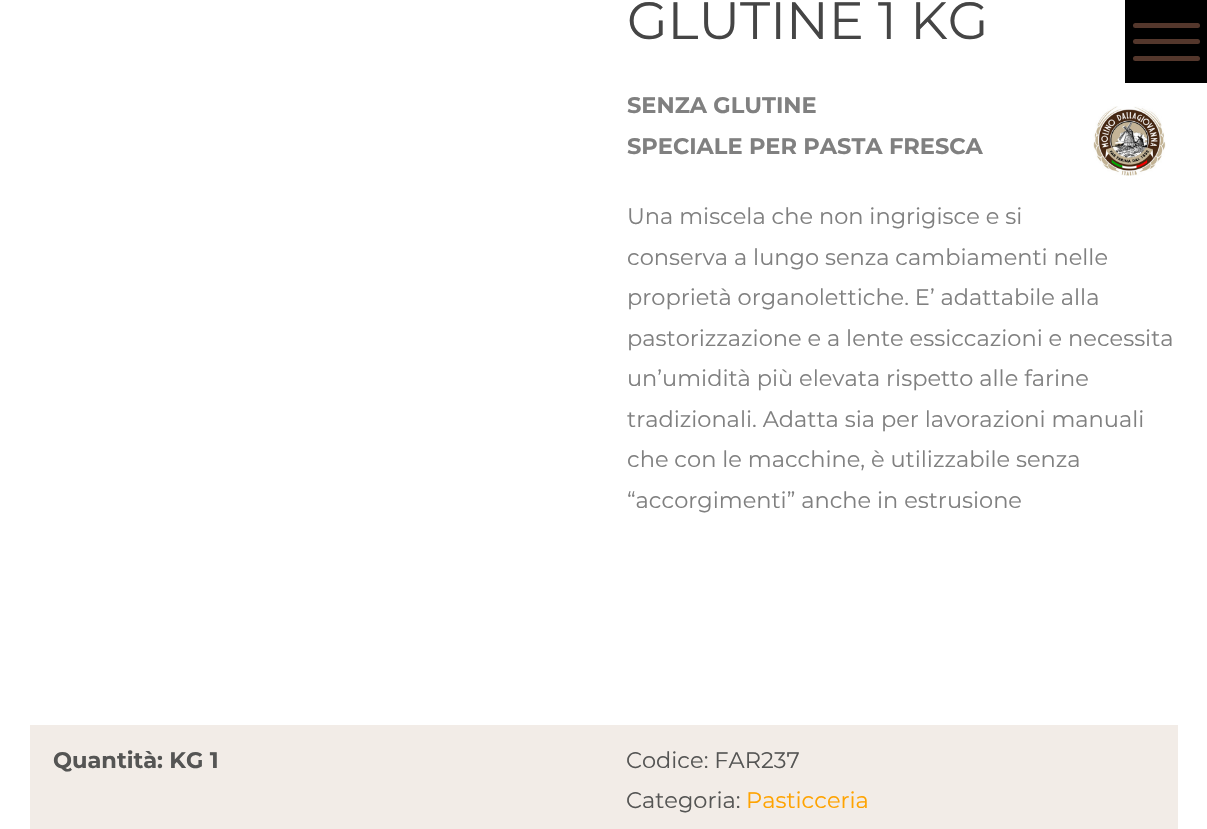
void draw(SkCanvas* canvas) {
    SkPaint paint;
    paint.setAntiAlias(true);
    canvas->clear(0xFFFFFFFF);
    paint.setColor(0xFF000000);
    canvas->drawRect(SkRect::MakeXYWH(1125, 0, 82, 83), paint);
    paint.setColor(0xFF54372C);
    canvas->drawRoundRect(SkRect::MakeXYWH(1133, 23, 67, 5), 2.5f, 2.5f, paint);
    canvas->drawRoundRect(SkRect::MakeXYWH(1133, 39, 67, 5), 2.5f, 2.5f, paint);
    canvas->drawRoundRect(SkRect::MakeXYWH(1133, 56, 67, 5), 2.5f, 2.5f, paint);
    SkFont font1(fontMgr->matchFamilyStyle("Montserrat", SkFontStyle(100, SkFontStyle::kNormal_Width, SkFontStyle::kUpright_Slant)), 52.5f);
    font1.setSubpixel(true);
    paint.setColor(0xFF454545);
    canvas->drawString("GLUTINE 1 KG", 627, 39, font1, paint);
    SkFont font2(fontMgr->matchFamilyStyle("Montserrat", SkFontStyle::Bold()), 22.5f);
    font2.setSubpixel(true);
    paint.setColor(0xFF808080);
    canvas->drawString("SENZA GLUTINE", 627, 113, font2, paint);
    canvas->drawString("SPECIALE PER PASTA FRESCA", 627, 154, font2, paint);
    SkFont font3(fontMgr->matchFamilyStyle("Montserrat", SkFontStyle(100, SkFontStyle::kNormal_Width, SkFontStyle::kUpright_Slant)), 22.5f);
    font3.setSubpixel(true);
    canvas->drawString("Una miscela che non ingrigisce e si", 627, 224, font3, paint);
    canvas->drawString("conserva a lungo senza cambiamenti nelle", 627, 265, font3, paint);
    canvas->drawString("proprietà organolettiche. E’ adattabile alla", 627, 305, font3, paint);
    canvas->drawString("pastorizzazione e a lente essiccazioni e necessita", 627, 346, font3, paint);
    canvas->drawString("un’umidità più elevata rispetto alle farine", 627, 386, font3, paint);
    canvas->drawString("tradizionali. Adatta sia per lavorazioni manuali", 627, 427, font3, paint);
    canvas->drawString("che con le macchine, è utilizzabile senza", 627, 467, font3, paint);
    canvas->drawString("“accorgimenti” anche in estrusione", 627, 508, font3, paint);
    canvas->drawImageRect(SkImages::DeferredFromEncodedData(SkData::MakeFromFileName("img1.png")), SkRect::MakeXYWH(1093, 106, 73, 70), SkSamplingOptions());
    paint.setColor(0xFFF2ECE7);
    canvas->drawRect(SkRect::MakeXYWH(30, 725, 1148, 104), paint);
    paint.setColor(0xFF555554);
    canvas->drawString("Quantità: KG 1", 53, 768, font2, paint);
    canvas->drawString("Codice: FAR237", 626, 768, font3, paint);
    canvas->drawString("Categoria:", 626, 808, font3, paint);
    paint.setColor(0xFFFFA300);
    canvas->drawString("Pasticceria", 746, 808, font3, paint);
}
